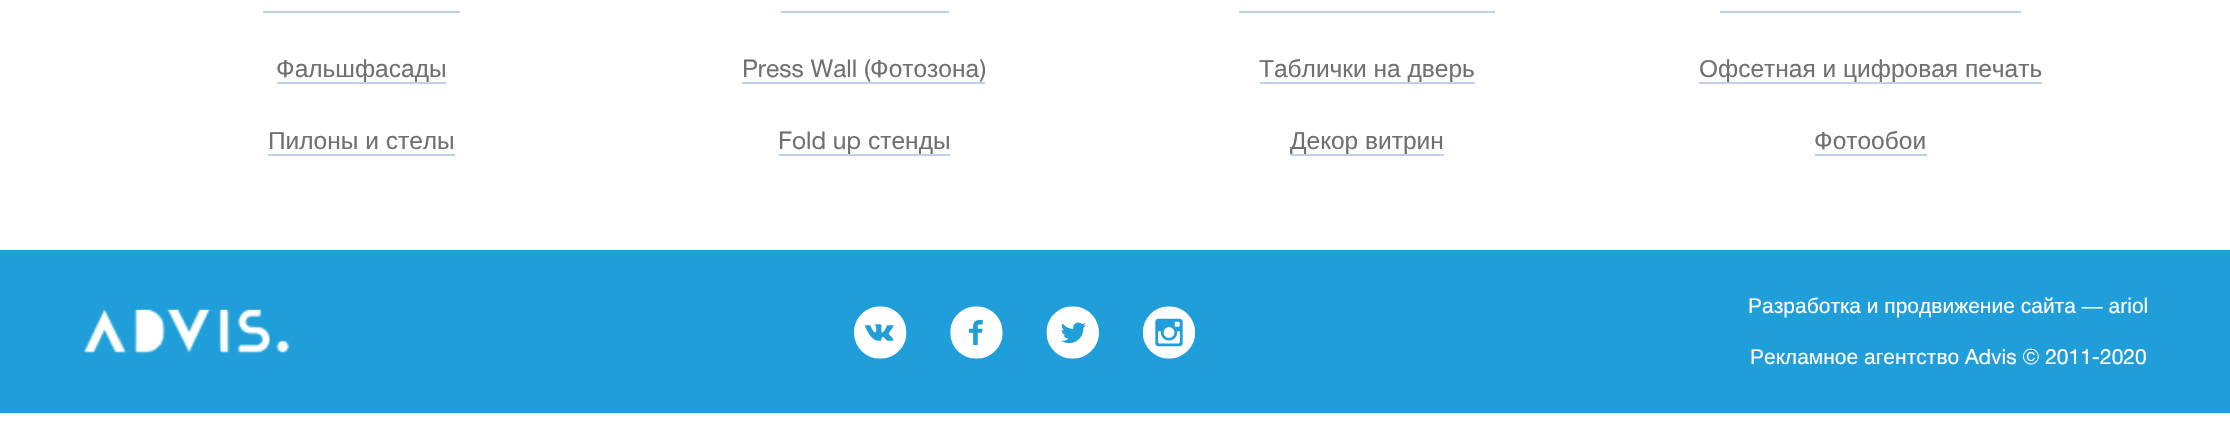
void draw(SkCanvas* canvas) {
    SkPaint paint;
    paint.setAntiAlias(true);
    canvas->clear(0xFFFFFFFF);
    paint.setColor(0xFFC0D0E8);
    canvas->drawRect(SkRect::MakeXYWH(263, 11, 197, 2), paint);
    canvas->drawRect(SkRect::MakeXYWH(277, 82, 169, 2), paint);
    SkFont font1(fontMgr->matchFamilyStyle("Liberation Sans", SkFontStyle::Normal()), 24.5f);
    font1.setSubpixel(true);
    paint.setColor(0xFF707070);
    canvas->drawString("Фальшфасады", 276, 77, font1, paint);
    canvas->drawString("Пилоны и стелы", 268, 149, font1, paint);
    paint.setColor(0xFFC0D0E8);
    canvas->drawRect(SkRect::MakeXYWH(268, 154, 187, 2), paint);
    canvas->drawRect(SkRect::MakeXYWH(781, 11, 168, 2), paint);
    SkFont font2(fontMgr->matchFamilyStyle("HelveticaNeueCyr", SkFontStyle::Normal()), 24.5f);
    font2.setSubpixel(true);
    paint.setColor(0xFF707070);
    canvas->drawString("Press Wall (", 742, 77, font2, paint);
    paint.setColor(0xFFC0D0E8);
    canvas->drawRect(SkRect::MakeXYWH(742, 82, 243, 2), paint);
    paint.setColor(0xFF707070);
    canvas->drawString("Фотозона", 870, 77, font1, paint);
    canvas->drawString(")", 980, 77, font2, paint);
    canvas->drawString("Fold up", 778, 149, font2, paint);
    canvas->drawString("стенды", 868, 149, font1, paint);
    paint.setColor(0xFFC0D0E8);
    canvas->drawRect(SkRect::MakeXYWH(779, 154, 171, 2), paint);
    canvas->drawRect(SkRect::MakeXYWH(1239, 11, 256, 2), paint);
    canvas->drawRect(SkRect::MakeXYWH(1260, 82, 215, 2), paint);
    paint.setColor(0xFF707070);
    canvas->drawString("Таблички на дверь", 1259, 77, font1, paint);
    paint.setColor(0xFFC0D0E8);
    canvas->drawRect(SkRect::MakeXYWH(1290, 154, 154, 2), paint);
    paint.setColor(0xFF707070);
    canvas->drawString("Декор витрин", 1290, 149, font1, paint);
    paint.setColor(0xFFC0D0E8);
    canvas->drawRect(SkRect::MakeXYWH(1720, 11, 301, 2), paint);
    canvas->drawRect(SkRect::MakeXYWH(1699, 82, 343, 2), paint);
    paint.setColor(0xFF707070);
    canvas->drawString("Офсетная и цифровая печать", 1699, 77, font1, paint);
    canvas->drawString("Фотообои", 1814, 149, font1, paint);
    paint.setColor(0xFFC0D0E8);
    canvas->drawRect(SkRect::MakeXYWH(1815, 154, 112, 2), paint);
    paint.setColor(0xFF1F9ED9);
    canvas->drawRect(SkRect::MakeXYWH(0, 250, 2230, 163), paint);
    canvas->drawImageRect(SkImages::DeferredFromEncodedData(SkData::MakeFromFileName("img1.png")), SkRect::MakeXYWH(84, 309, 206, 45), SkSamplingOptions());
    canvas->drawImageRect(SkImages::DeferredFromEncodedData(SkData::MakeFromFileName("img2.png")), SkRect::MakeXYWH(854, 306, 53, 53), SkSamplingOptions());
    canvas->drawImageRect(SkImages::DeferredFromEncodedData(SkData::MakeFromFileName("img3.png")), SkRect::MakeXYWH(950, 306, 53, 53), SkSamplingOptions());
    canvas->drawImageRect(SkImages::DeferredFromEncodedData(SkData::MakeFromFileName("img4.png")), SkRect::MakeXYWH(1046, 306, 53, 53), SkSamplingOptions());
    canvas->drawImageRect(SkImages::DeferredFromEncodedData(SkData::MakeFromFileName("img5.png")), SkRect::MakeXYWH(1142, 306, 54, 53), SkSamplingOptions());
    SkFont font3(fontMgr->matchFamilyStyle("Liberation Sans", SkFontStyle::Normal()), 21);
    font3.setSubpixel(true);
    paint.setColor(0xFFFFFFFF);
    canvas->drawString("Разработка и продвижение сайта — ariol", 1748, 313, font3, paint);
    canvas->drawString("Рекламное агентство", 1750, 364, font3, paint);
    SkFont font4(fontMgr->matchFamilyStyle("HelveticaNeueCyr", SkFontStyle::Normal()), 21);
    font4.setSubpixel(true);
    canvas->drawString("Advis © 2011-2020", 1965, 364, font4, paint);
}
